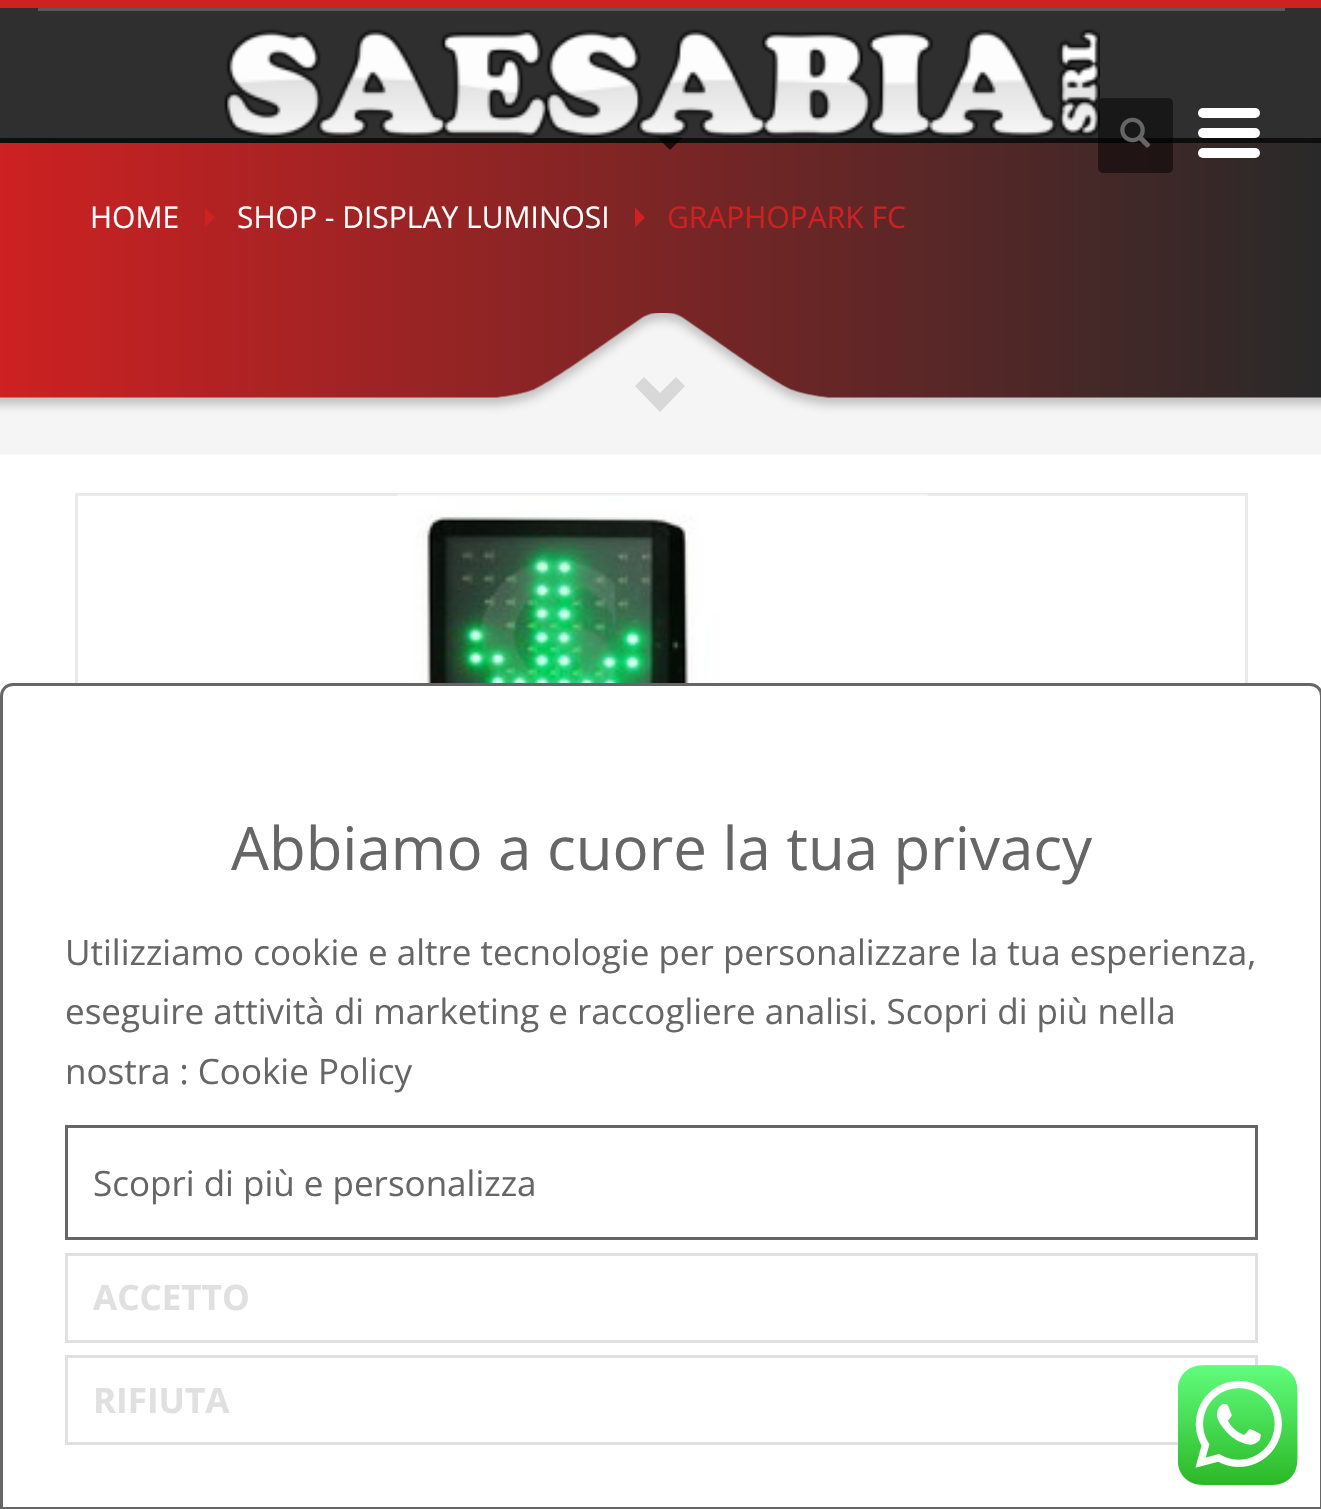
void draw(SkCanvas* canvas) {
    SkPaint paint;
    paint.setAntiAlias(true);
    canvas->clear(0xFFFFFFFF);
    paint.setColor(0xFF2F2F2F);
    canvas->drawRect(SkRect::MakeXYWH(0, 8, 1321, 130), paint);
    paint.setColor(0xFFCD2122);
    canvas->drawRect(SkRect::MakeXYWH(0, 0, 1321, 8), paint);
    paint.setColor(0xFF0E0E0E);
    canvas->drawRect(SkRect::MakeXYWH(0, 138, 1321, 5), paint);
    paint.setColor(0xFF595959);
    canvas->drawRect(SkRect::MakeXYWH(38, 8, 1247, 3), paint);
    canvas->drawImageRect(SkImages::DeferredFromEncodedData(SkData::MakeFromFileName("img1.png")), SkRect::MakeXYWH(224, 29, 876, 109), SkSamplingOptions());
    {
        const SkColor colors[] = {0xFFCD2122, 0xFF292929};
        const float stops[] = {0, 1};
        const SkPoint ends[] = {{0, 280}, {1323, 280}};
        paint.setShader(SkGradientShader::MakeLinear(ends, colors, stops, 2, SkTileMode::kClamp));
        paint.setAlpha(255);
    }
    canvas->drawRect(SkRect::MakeXYWH(0, 143, 1321, 255), paint);
    paint.setShader(nullptr);
    paint.setColor(0x80000000);
    canvas->drawRoundRect(SkRect::MakeXYWH(1098, 98, 75, 75), 5, 5, paint);
    canvas->drawImageRect(SkImages::DeferredFromEncodedData(SkData::MakeFromFileName("img2.png")), SkRect::MakeXYWH(1120, 117, 31, 31), SkSamplingOptions());
    paint.setColor(0xFFFFFFFF);
    canvas->drawRoundRect(SkRect::MakeXYWH(1198, 148, 62, 10), 5, 5, paint);
    canvas->drawRoundRect(SkRect::MakeXYWH(1198, 128, 62, 10), 5, 5, paint);
    canvas->drawRoundRect(SkRect::MakeXYWH(1198, 108, 62, 10), 5, 5, paint);
    paint.setColor(0xB3000000);
    canvas->drawPath(SkPathBuilder().moveTo(657.5f, 137.5f).lineTo(682.5f, 137.5f).lineTo(670, 150).close().detach(), paint);
    SkFont font1(fontMgr->matchFamilyStyle("Open Sans", SkFontStyle::Normal()), 30);
    font1.setSubpixel(true);
    paint.setColor(0xFFFFFFFF);
    canvas->drawString("HOME", 90, 228, font1, paint);
    paint.setColor(0xFFCD2122);
    canvas->drawPath(SkPathBuilder().moveTo(205, 227.5f).lineTo(205, 207.5f).lineTo(215, 217.5f).close().detach(), paint);
    paint.setColor(0xFFFFFFFF);
    canvas->drawString("SHOP - DISPLAY LUMINOSI", 237, 228, font1, paint);
    paint.setColor(0xFFCD2122);
    canvas->drawPath(SkPathBuilder().moveTo(635, 227.5f).lineTo(635, 207.5f).lineTo(645, 217.5f).close().detach(), paint);
    canvas->drawString("GRAPHOPARK FC", 667, 228, font1, paint);
    canvas->drawImageRect(SkImages::DeferredFromEncodedData(SkData::MakeFromFileName("img3.png")), SkRect::MakeXYWH(0, 313, 1321, 142), SkSamplingOptions());
    paint.setColor(0xFFD8D8D8);
    canvas->drawPath(SkPathBuilder().moveTo(685, 386).lineTo(660, 412).lineTo(635, 386).lineTo(644, 377).lineTo(660, 393).lineTo(676, 377).close().detach(), paint);
    paint.setStyle(SkPaint::kStroke_Style);
    paint.setStrokeWidth(3);
    paint.setColor(0xFFEAEAEA);
    canvas->drawRect(SkRect::MakeXYWH(76.5f, 494.5f, 1170, 549), paint);
    canvas->drawImageRect(SkImages::DeferredFromEncodedData(SkData::MakeFromFileName("img4.png")), SkRect::MakeXYWH(397, 494, 531, 189), SkSamplingOptions());
    paint.setStyle(SkPaint::kFill_Style);
    paint.setColor(0xFFFFFFFF);
    canvas->drawPath(SkPathBuilder().moveTo(13, 684.5f).lineTo(1310, 684.5f).cubicTo(1316.5f, 684.5f, 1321.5f, 689.5f, 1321.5f, 696).lineTo(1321.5f, 1508.5f).lineTo(1.5f, 1508.5f).lineTo(1.5f, 696).cubicTo(1.5f, 689.5f, 6.5f, 684.5f, 13, 684.5f).close().detach(), paint);
    paint.setStyle(SkPaint::kStroke_Style);
    paint.setColor(0xFF666666);
    canvas->drawPath(SkPathBuilder().moveTo(13, 684.5f).lineTo(1310, 684.5f).cubicTo(1316.5f, 684.5f, 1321.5f, 689.5f, 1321.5f, 696).lineTo(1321.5f, 1508.5f).lineTo(1.5f, 1508.5f).lineTo(1.5f, 696).cubicTo(1.5f, 689.5f, 6.5f, 684.5f, 13, 684.5f).close().detach(), paint);
    SkFont font2(fontMgr->matchFamilyStyle("Open Sans", SkFontStyle::Normal()), 60);
    font2.setSubpixel(true);
    paint.setStyle(SkPaint::kFill_Style);
    canvas->drawString("Abbiamo a cuore la tua privacy", 231, 870, font2, paint);
    SkFont font3(fontMgr->matchFamilyStyle("Open Sans", SkFontStyle::Normal()), 35);
    font3.setSubpixel(true);
    canvas->drawString("Utilizziamo cookie e altre tecnologie per personalizzare la tua esperienza,", 65, 965, font3, paint);
    canvas->drawString("eseguire attività di marketing e raccogliere analisi. Scopri di più nella", 65, 1024, font3, paint);
    canvas->drawString("nostra : Cookie Policy", 65, 1084, font3, paint);
    paint.setStyle(SkPaint::kStroke_Style);
    canvas->drawRect(SkRect::MakeXYWH(66.5f, 1126.5f, 1190, 112), paint);
    paint.setStyle(SkPaint::kFill_Style);
    canvas->drawString("Scopri di più e personalizza", 93, 1196, font3, paint);
    paint.setStyle(SkPaint::kStroke_Style);
    paint.setColor(0xFFE0E0E0);
    canvas->drawRect(SkRect::MakeXYWH(66.5f, 1254.5f, 1190, 87), paint);
    SkFont font4(fontMgr->matchFamilyStyle("Open Sans", SkFontStyle::Bold()), 35);
    font4.setSubpixel(true);
    paint.setStyle(SkPaint::kFill_Style);
    canvas->drawString("ACCETTO", 93, 1310, font4, paint);
    paint.setStyle(SkPaint::kStroke_Style);
    canvas->drawRect(SkRect::MakeXYWH(66.5f, 1356.5f, 1190, 87), paint);
    paint.setStyle(SkPaint::kFill_Style);
    canvas->drawString("RIFIUTA", 93, 1413, font4, paint);
    canvas->drawImageRect(SkImages::DeferredFromEncodedData(SkData::MakeFromFileName("img5.png")), SkRect::MakeXYWH(1178, 1365, 120, 120), SkSamplingOptions());
}
